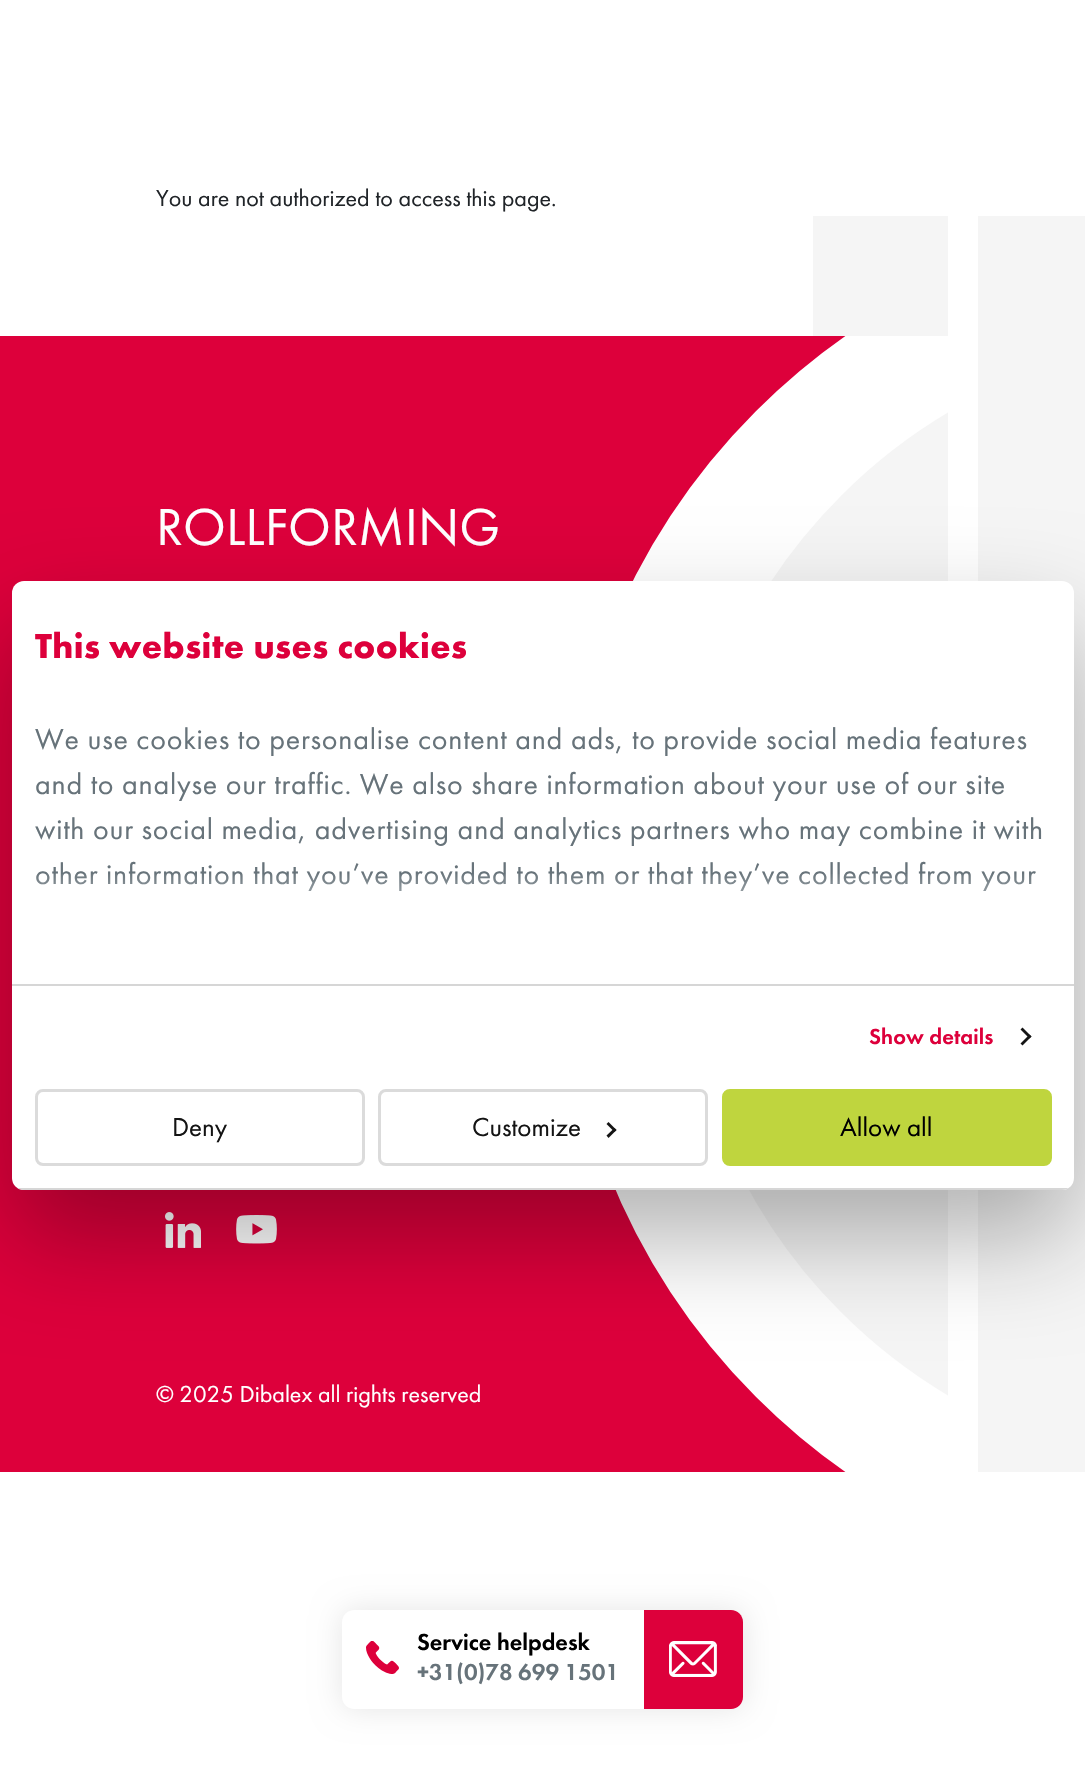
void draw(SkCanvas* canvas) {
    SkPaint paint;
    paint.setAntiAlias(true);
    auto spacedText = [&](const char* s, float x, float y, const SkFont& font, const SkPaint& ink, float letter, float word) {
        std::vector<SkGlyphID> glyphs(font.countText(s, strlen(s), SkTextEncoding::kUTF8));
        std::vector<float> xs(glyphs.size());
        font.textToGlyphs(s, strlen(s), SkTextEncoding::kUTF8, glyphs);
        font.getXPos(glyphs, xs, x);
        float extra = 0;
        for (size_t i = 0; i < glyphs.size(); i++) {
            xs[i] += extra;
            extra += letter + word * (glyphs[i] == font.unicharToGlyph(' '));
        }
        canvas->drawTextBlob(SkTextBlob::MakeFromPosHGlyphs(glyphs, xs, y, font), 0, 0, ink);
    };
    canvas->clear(0xFFFFFFFF);
    SkFont font1(fontMgr->matchFamilyStyle("Futura PT", SkFontStyle::Normal()), 24);
    font1.setSubpixel(true);
    paint.setColor(0xFF212529);
    canvas->drawString("You are not authorized to access this page.", 156, 206, font1, paint);
    paint.setColor(0xFFF5F5F5);
    canvas->drawRect(SkRect::MakeXYWH(813, 216, 135, 120), paint);
    paint.setColor(0xFFDD003B);
    canvas->drawRect(SkRect::MakeXYWH(0, 336, 861, 1136), paint);
    paint.setColor(0xFFF5F5F5);
    canvas->drawRect(SkRect::MakeXYWH(978, 216, 107, 1256), paint);
    SkFont font2(fontMgr->matchFamilyStyle("Futura PT", SkFontStyle::Normal()), 54);
    font2.setSubpixel(true);
    paint.setColor(0xFFFFFFFF);
    canvas->drawString("ROLLFORMING", 156, 545, font2, paint);
    canvas->drawImageRect(SkImages::DeferredFromEncodedData(SkData::MakeFromFileName("img1.png")), SkRect::MakeXYWH(165, 1212, 36, 36), SkSamplingOptions());
    canvas->drawImageRect(SkImages::DeferredFromEncodedData(SkData::MakeFromFileName("img2.png")), SkRect::MakeXYWH(236, 1215, 41, 29), SkSamplingOptions());
    canvas->drawString("© 2025 Dibalex all rights reserved", 156, 1402, font1, paint);
    canvas->save();
    canvas->clipRect(SkRect::MakeXYWH(543, 336, 405, 1136));
    paint.setColor(0xFFF5F5F5);
    canvas->drawRoundRect(SkRect::MakeXYWH(621, 276, 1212, 1256), 628, 628, paint);
    paint.setStyle(SkPaint::kStroke_Style);
    paint.setStrokeWidth(120);
    paint.setColor(0xFFFFFFFF);
    canvas->drawRoundRect(SkRect::MakeXYWH(621, 276, 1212, 1256), 628, 628, paint);
    canvas->restore();
    paint.setStyle(SkPaint::kFill_Style);
    paint.setColor(0x1A000000);
    paint.setMaskFilter(SkMaskFilter::MakeBlur(kNormal_SkBlurStyle, 15));
    canvas->drawRoundRect(SkRect::MakeXYWH(342, 1610, 402, 99), 12, 12, paint);
    paint.setMaskFilter(nullptr);
    paint.setColor(0xFFFFFFFF);
    canvas->drawPath(SkPathBuilder().moveTo(354, 1610).lineTo(644, 1610).lineTo(644, 1709).lineTo(354, 1709).cubicTo(347.5f, 1709, 342, 1703.5f, 342, 1697).lineTo(342, 1622).cubicTo(342, 1615.5f, 347.5f, 1610, 354, 1610).close().detach(), paint);
    canvas->drawImageRect(SkImages::DeferredFromEncodedData(SkData::MakeFromFileName("img3.png")), SkRect::MakeXYWH(366, 1641, 33, 33), SkSamplingOptions());
    SkFont font3(fontMgr->matchFamilyStyle("Futura PT", SkFontStyle(500, SkFontStyle::kNormal_Width, SkFontStyle::kUpright_Slant)), 24);
    font3.setSubpixel(true);
    paint.setColor(0xFF000000);
    canvas->drawString("Service helpdesk", 417, 1650, font3, paint);
    paint.setColor(0xFF67737A);
    canvas->drawString("+31(0)78 699 1501", 417, 1680, font3, paint);
    paint.setColor(0xFFDD003B);
    canvas->drawPath(SkPathBuilder().moveTo(644, 1610).lineTo(731, 1610).cubicTo(737.5f, 1610, 743, 1615.5f, 743, 1622).lineTo(743, 1697).cubicTo(743, 1703.5f, 737.5f, 1709, 731, 1709).lineTo(644, 1709).close().detach(), paint);
    canvas->drawImageRect(SkImages::DeferredFromEncodedData(SkData::MakeFromFileName("img4.png")), SkRect::MakeXYWH(669, 1641, 48, 36), SkSamplingOptions());
    paint.setColor(0x4D000000);
    paint.setMaskFilter(SkMaskFilter::MakeBlur(kNormal_SkBlurStyle, 51));
    canvas->drawRoundRect(SkRect::MakeXYWH(12, 629, 1062, 609), 12, 12, paint);
    paint.setMaskFilter(nullptr);
    paint.setColor(0xFFFFFFFF);
    canvas->drawRoundRect(SkRect::MakeXYWH(12, 581, 1062, 609), 12, 12, paint);
    paint.setColor(0xFFD6D6D6);
    canvas->drawRect(SkRect::MakeXYWH(12, 984, 1062, 2), paint);
    SkFont font4(fontMgr->matchFamilyStyle("Futura PT", SkFontStyle::Bold()), 36);
    font4.setSubpixel(true);
    paint.setColor(0xFFDD003B);
    spacedText("This website uses cookies", 35, 658, font4, paint, 0.4f, 0);
    SkFont font5(fontMgr->matchFamilyStyle("Futura PT", SkFontStyle::Normal()), 30);
    font5.setSubpixel(true);
    paint.setColor(0xFF67737A);
    spacedText("We use cookies to personalise content and ads, to provide social media features", 35, 749, font5, paint, 0.75f, 0);
    spacedText("and to analyse our traffic. We also share information about your use of our site", 35, 794, font5, paint, 0.75f, 0);
    spacedText("with our social media, advertising and analytics partners who may combine it with", 35, 839, font5, paint, 0.75f, 0);
    spacedText("other information that you’ve provided to them or that they’ve collected from your", 35, 884, font5, paint, 0.75f, 0);
    {
        const SkColor colors[] = {0xFFFFFFFF, 0xCCFFFFFF, 0x00FFFFFF};
        const float stops[] = {0, 0.5f, 1};
        const SkPoint ends[] = {{533, 984}, {533, 872}};
        paint.setShader(SkGradientShader::MakeLinear(ends, colors, stops, 3, SkTileMode::kClamp));
        paint.setAlpha(255);
    }
    canvas->drawRect(SkRect::MakeXYWH(36, 874, 995, 17), paint);
    SkFont font6(fontMgr->matchFamilyStyle("Futura PT", SkFontStyle(500, SkFontStyle::kNormal_Width, SkFontStyle::kUpright_Slant)), 22.5f);
    font6.setSubpixel(true);
    paint.setShader(nullptr);
    paint.setColor(0xFFDD003B);
    spacedText("Show details", 869, 1044, font6, paint, 0.1f, 0);
    paint.setColor(0xFF141414);
    canvas->drawPath(SkPathBuilder().moveTo(1022.5f, 1027.5f).lineTo(1031.5f, 1036.5f).lineTo(1029.5f, 1038.5f).lineTo(1020.5f, 1029.5f).close().detach(), paint);
    canvas->drawPath(SkPathBuilder().moveTo(1029.5f, 1034.5f).lineTo(1031.5f, 1036.5f).lineTo(1022.5f, 1045.5f).lineTo(1020.5f, 1043.5f).close().detach(), paint);
    canvas->save();
    canvas->clipPath(SkPathBuilder().moveTo(24, 581).lineTo(1062, 581).cubicTo(1068.5f, 581, 1074, 586.5f, 1074, 593).lineTo(1074, 1178).cubicTo(1074, 1184.5f, 1068.5f, 1190, 1062, 1190).lineTo(24, 1190).cubicTo(17.5f, 1190, 12, 1184.5f, 12, 1178).lineTo(12, 593).cubicTo(12, 586.5f, 17.5f, 581, 24, 581).close().detach(), true);
    paint.setColor(0xFFD6D6D6);
    canvas->drawRect(SkRect::MakeXYWH(12, 1188, 1062, 2), paint);
    canvas->restore();
    paint.setStyle(SkPaint::kStroke_Style);
    paint.setStrokeWidth(3);
    paint.setColor(0xFFDBDBDB);
    canvas->drawRoundRect(SkRect::MakeXYWH(36.5f, 1090.5f, 327, 74), 6.5f, 6.5f, paint);
    SkFont font7(fontMgr->matchFamilyStyle("Futura PT", SkFontStyle::Normal()), 27);
    font7.setSubpixel(true);
    paint.setStyle(SkPaint::kFill_Style);
    paint.setColor(0xFF141414);
    canvas->drawString("Deny", 172, 1136, font7, paint);
    paint.setStyle(SkPaint::kStroke_Style);
    paint.setColor(0xFFDBDBDB);
    canvas->drawRoundRect(SkRect::MakeXYWH(379.5f, 1090.5f, 327, 74), 6.5f, 6.5f, paint);
    paint.setStyle(SkPaint::kFill_Style);
    paint.setColor(0xFF141414);
    canvas->drawString("Customize", 472, 1136, font7, paint);
    canvas->drawPath(SkPathBuilder().moveTo(608.5f, 1122).lineTo(616.5f, 1130).lineTo(614.5f, 1132).lineTo(606.5f, 1124).close().detach(), paint);
    canvas->drawPath(SkPathBuilder().moveTo(614.5f, 1128).lineTo(616.5f, 1130).lineTo(608.5f, 1138).lineTo(606.5f, 1135.5f).close().detach(), paint);
    paint.setColor(0xFFBFD53E);
    canvas->drawRoundRect(SkRect::MakeXYWH(723.5f, 1090.5f, 327, 74), 6.5f, 6.5f, paint);
    paint.setStyle(SkPaint::kStroke_Style);
    canvas->drawRoundRect(SkRect::MakeXYWH(723.5f, 1090.5f, 327, 74), 6.5f, 6.5f, paint);
    paint.setStyle(SkPaint::kFill_Style);
    paint.setColor(0xFF000000);
    canvas->drawString("Allow all", 840, 1136, font7, paint);
}
